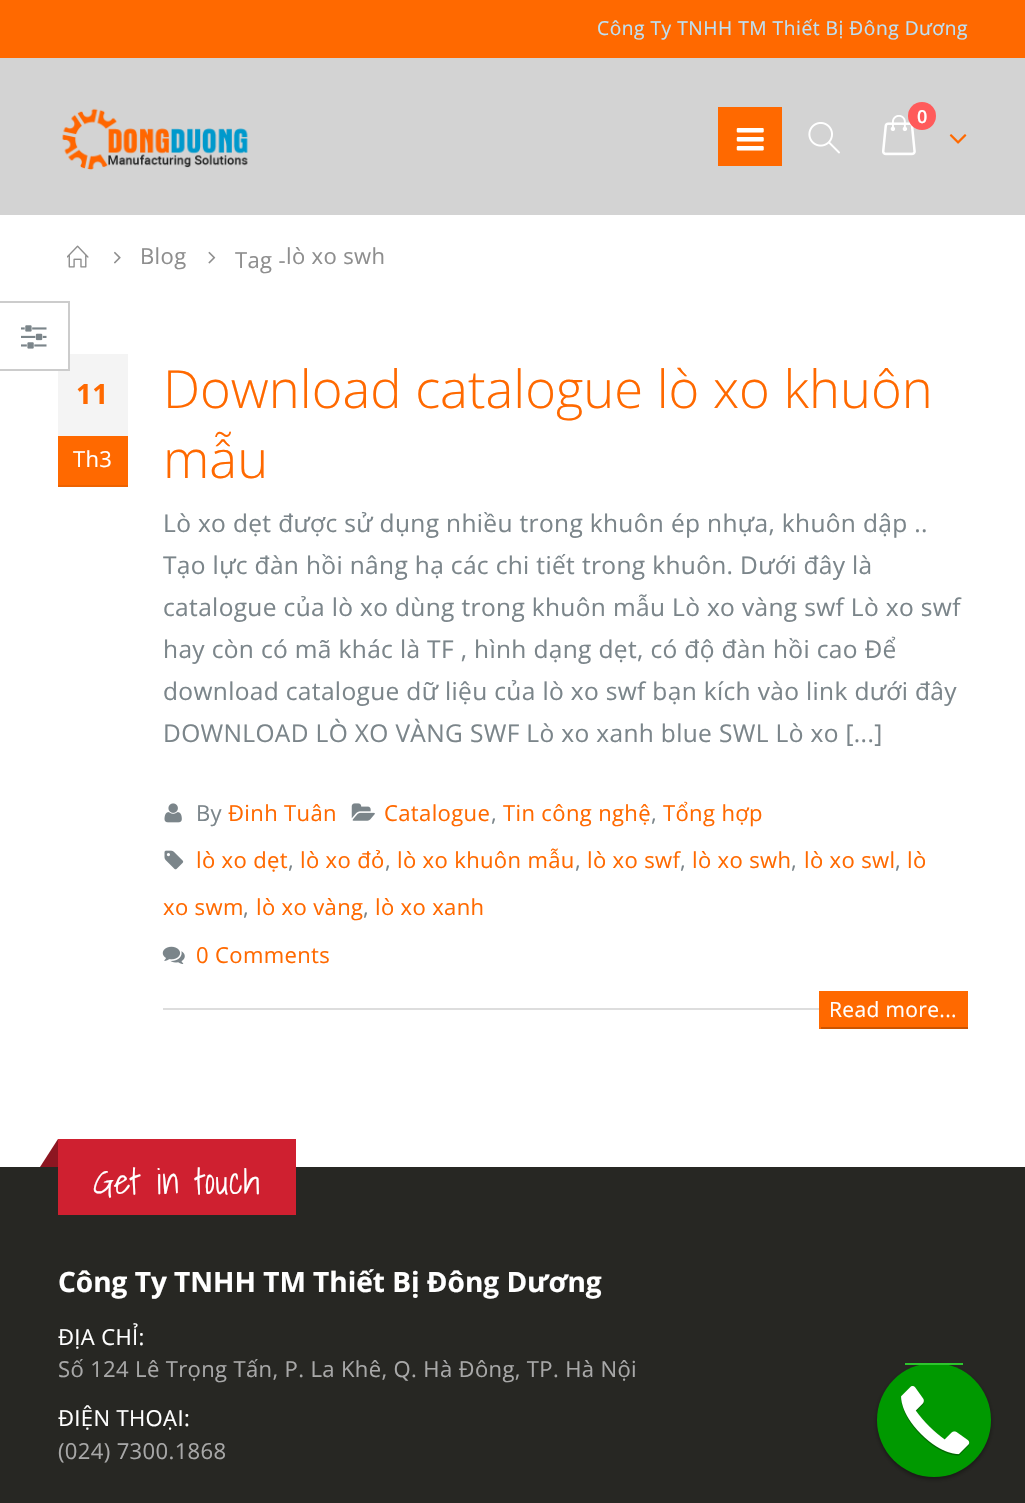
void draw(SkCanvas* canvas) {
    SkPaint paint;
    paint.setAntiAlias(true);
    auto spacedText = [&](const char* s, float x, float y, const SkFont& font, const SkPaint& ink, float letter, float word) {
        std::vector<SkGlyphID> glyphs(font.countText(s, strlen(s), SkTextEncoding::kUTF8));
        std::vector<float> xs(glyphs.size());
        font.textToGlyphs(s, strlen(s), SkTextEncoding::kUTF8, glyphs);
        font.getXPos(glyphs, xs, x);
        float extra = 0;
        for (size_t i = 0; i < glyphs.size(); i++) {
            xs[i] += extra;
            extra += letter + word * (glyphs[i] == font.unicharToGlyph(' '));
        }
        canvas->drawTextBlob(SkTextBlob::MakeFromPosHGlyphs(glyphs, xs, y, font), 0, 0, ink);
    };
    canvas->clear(0xFFFFFFFF);
    paint.setColor(0xFFF4F4F4);
    canvas->drawRect(SkRect::MakeXYWH(58, 354, 70, 82), paint);
    paint.setColor(0xFFFFFFFF);
    canvas->drawRect(SkRect::MakeXYWH(58, 354, 10, 15), paint);
    paint.setColor(0xFFCCCCCC);
    canvas->drawRect(SkRect::MakeXYWH(0, 301, 70, 2), paint);
    canvas->drawRect(SkRect::MakeXYWH(68, 301, 2, 70), paint);
    canvas->drawRect(SkRect::MakeXYWH(0, 369, 70, 2), paint);
    canvas->drawImageRect(SkImages::DeferredFromEncodedData(SkData::MakeFromFileName("img1.png")), SkRect::MakeXYWH(21, 325, 26, 24), SkSamplingOptions());
    paint.setColor(0xFFFF6900);
    canvas->drawRect(SkRect::MakeXYWH(0, 0, 1025, 58), paint);
    SkFont font1(fontMgr->matchFamilyStyle("Open Sans", SkFontStyle::Normal()), 19.25f);
    font1.setSubpixel(true);
    paint.setColor(0xFFBDE1F5);
    spacedText("Công Ty TNHH TM Thiết Bị Đông Dương", 597, 35, font1, paint, 0.5f, 0);
    paint.setColor(0xFFD3D3D3);
    canvas->drawRect(SkRect::MakeXYWH(0, 58, 1025, 157), paint);
    canvas->drawImageRect(SkImages::DeferredFromEncodedData(SkData::MakeFromFileName("img2.png")), SkRect::MakeXYWH(62, 108, 186, 62), SkSamplingOptions());
    paint.setColor(0xFFFF6900);
    canvas->drawRect(SkRect::MakeXYWH(718, 107, 64, 59), paint);
    canvas->drawImageRect(SkImages::DeferredFromEncodedData(SkData::MakeFromFileName("img3.png")), SkRect::MakeXYWH(736, 128, 28, 23), SkSamplingOptions());
    canvas->drawImageRect(SkImages::DeferredFromEncodedData(SkData::MakeFromFileName("img4.png")), SkRect::MakeXYWH(808, 122, 32, 32), SkSamplingOptions());
    canvas->drawImageRect(SkImages::DeferredFromEncodedData(SkData::MakeFromFileName("img5.png")), SkRect::MakeXYWH(882, 115, 34, 41), SkSamplingOptions());
    paint.setColor(0xFFFF5B5B);
    canvas->drawCircle(922, 116, 14, paint);
    SkFont font2(fontMgr->matchFamilyStyle("Open Sans", SkFontStyle(600, SkFontStyle::kNormal_Width, SkFontStyle::kUpright_Slant)), 18);
    font2.setSubpixel(true);
    paint.setColor(0xFFFFFFFF);
    spacedText("0", 917, 123, font2, paint, 0.35f, 0);
    canvas->drawImageRect(SkImages::DeferredFromEncodedData(SkData::MakeFromFileName("img6.png")), SkRect::MakeXYWH(949, 134, 18, 10), SkSamplingOptions());
    canvas->drawImageRect(SkImages::DeferredFromEncodedData(SkData::MakeFromFileName("img7.png")), SkRect::MakeXYWH(67, 245, 22, 23), SkSamplingOptions());
    canvas->drawImageRect(SkImages::DeferredFromEncodedData(SkData::MakeFromFileName("img8.png")), SkRect::MakeXYWH(114, 251, 7, 13), SkSamplingOptions());
    SkFont font3(fontMgr->matchFamilyStyle("Open Sans", SkFontStyle::Normal()), 22.05f);
    font3.setSubpixel(true);
    paint.setColor(0xFF8E8E8E);
    spacedText("Blog", 140, 264, font3, paint, 0.35f, 0);
    canvas->drawImageRect(SkImages::DeferredFromEncodedData(SkData::MakeFromFileName("img9.png")), SkRect::MakeXYWH(208, 251, 8, 13), SkSamplingOptions());
    spacedText("Tag -", 235, 268, font3, paint, 0.35f, 0);
    spacedText("lò xo swh", 286, 264, font3, paint, 0.35f, 0);
    paint.setColor(0xFFDDDDDD);
    canvas->drawRect(SkRect::MakeXYWH(163, 1008, 656, 2), paint);
    SkFont font4(fontMgr->matchFamilyStyle("Open Sans", SkFontStyle::Bold()), 28);
    font4.setSubpixel(true);
    paint.setColor(0xFFFF6900);
    spacedText("11", 76, 404, font4, paint, 0.35f, 0);
    canvas->drawRect(SkRect::MakeXYWH(58, 436, 70, 49), paint);
    paint.setColor(0xFFED6200);
    canvas->drawRect(SkRect::MakeXYWH(58, 485, 70, 2), paint);
    paint.setColor(0xFFFFFFFF);
    spacedText("Th3", 73, 467, font3, paint, 0.35f, 0);
    SkFont font5(fontMgr->matchFamilyStyle("Open Sans", SkFontStyle(300, SkFontStyle::kNormal_Width, SkFontStyle::kUpright_Slant)), 52.5f);
    font5.setSubpixel(true);
    paint.setColor(0xFFFF6900);
    canvas->drawString("Download catalogue lò xo khuôn", 163, 408, font5, paint);
    canvas->drawString("mẫu", 163, 478, font5, paint);
    SkFont font6(fontMgr->matchFamilyStyle("Open Sans", SkFontStyle::Normal()), 24.5f);
    font6.setSubpixel(true);
    paint.setColor(0xFF7B858A);
    spacedText("Lò xo dẹt được sử dụng nhiều trong khuôn ép nhựa, khuôn dập ..", 163, 532, font6, paint, 0.35f, 0);
    spacedText("Tạo lực đàn hồi nâng hạ các chi tiết trong khuôn. Dưới đây là", 163, 574, font6, paint, 0.35f, 0);
    spacedText("catalogue của lò xo dùng trong khuôn mẫu Lò xo vàng swf Lò xo swf", 163, 616, font6, paint, 0.35f, 0);
    spacedText("hay còn có mã khác là TF , hình dạng dẹt, có độ đàn hồi cao Để", 163, 658, font6, paint, 0.35f, 0);
    spacedText("download catalogue dữ liệu của lò xo swf bạn kích vào link dưới đây", 163, 700, font6, paint, 0.35f, 0);
    spacedText("DOWNLOAD LÒ XO VÀNG SWF Lò xo xanh blue SWL Lò xo [...]", 163, 742, font6, paint, 0.35f, 0);
    canvas->drawImageRect(SkImages::DeferredFromEncodedData(SkData::MakeFromFileName("img10.png")), SkRect::MakeXYWH(164, 803, 18, 20), SkSamplingOptions());
    spacedText("By", 196, 821, font3, paint, 0.35f, 0);
    paint.setColor(0xFFFF6900);
    spacedText("Đinh Tuân", 228, 821, font3, paint, 0.35f, 0);
    canvas->drawImageRect(SkImages::DeferredFromEncodedData(SkData::MakeFromFileName("img11.png")), SkRect::MakeXYWH(351, 803, 24, 18), SkSamplingOptions());
    spacedText("Catalogue", 384, 821, font3, paint, 0.35f, 0);
    paint.setColor(0xFF7B858A);
    spacedText(",", 491, 821, font3, paint, 0.35f, 0);
    paint.setColor(0xFFFF6900);
    spacedText("Tin công nghệ", 503, 821, font3, paint, 0.35f, 0);
    paint.setColor(0xFF7B858A);
    spacedText(",", 651, 821, font3, paint, 0.35f, 0);
    paint.setColor(0xFFFF6900);
    spacedText("Tổng hợp", 663, 821, font3, paint, 0.35f, 0);
    canvas->drawImageRect(SkImages::DeferredFromEncodedData(SkData::MakeFromFileName("img12.png")), SkRect::MakeXYWH(164, 850, 20, 20), SkSamplingOptions());
    spacedText("lò xo dẹt", 196, 868, font3, paint, 0.35f, 0);
    paint.setColor(0xFF7B858A);
    spacedText(",", 288, 868, font3, paint, 0.35f, 0);
    paint.setColor(0xFFFF6900);
    spacedText("lò xo đỏ", 300, 868, font3, paint, 0.35f, 0);
    paint.setColor(0xFF7B858A);
    spacedText(",", 385, 868, font3, paint, 0.35f, 0);
    paint.setColor(0xFFFF6900);
    spacedText("lò xo khuôn mẫu", 397, 868, font3, paint, 0.35f, 0);
    paint.setColor(0xFF7B858A);
    spacedText(",", 575, 868, font3, paint, 0.35f, 0);
    paint.setColor(0xFFFF6900);
    spacedText("lò xo swf", 587, 868, font3, paint, 0.35f, 0);
    paint.setColor(0xFF7B858A);
    spacedText(",", 680, 868, font3, paint, 0.35f, 0);
    paint.setColor(0xFFFF6900);
    spacedText("lò xo swh", 692, 868, font3, paint, 0.35f, 0);
    paint.setColor(0xFF7B858A);
    spacedText(",", 791, 868, font3, paint, 0.35f, 0);
    paint.setColor(0xFFFF6900);
    spacedText("lò xo swl", 804, 868, font3, paint, 0.35f, 0);
    paint.setColor(0xFF7B858A);
    spacedText(",", 895, 868, font3, paint, 0.35f, 0);
    paint.setColor(0xFFFF6900);
    spacedText("lò", 907, 868, font3, paint, 0.35f, 0);
    spacedText("xo swm", 163, 915, font3, paint, 0.35f, 0);
    paint.setColor(0xFF7B858A);
    spacedText(",", 243, 915, font3, paint, 0.35f, 0);
    paint.setColor(0xFFFF6900);
    spacedText("lò xo vàng", 256, 915, font3, paint, 0.35f, 0);
    paint.setColor(0xFF7B858A);
    spacedText(",", 363, 915, font3, paint, 0.35f, 0);
    paint.setColor(0xFFFF6900);
    spacedText("lò xo xanh", 375, 915, font3, paint, 0.35f, 0);
    canvas->drawImageRect(SkImages::DeferredFromEncodedData(SkData::MakeFromFileName("img13.png")), SkRect::MakeXYWH(162, 946, 23, 18), SkSamplingOptions());
    spacedText("0 Comments", 196, 963, font3, paint, 0.35f, 0);
    canvas->drawRect(SkRect::MakeXYWH(821, 991, 147, 36), paint);
    paint.setColor(0xFFCC5400);
    canvas->drawRect(SkRect::MakeXYWH(819, 1027, 149, 2), paint);
    paint.setColor(0xFFFF6900);
    canvas->drawRect(SkRect::MakeXYWH(819, 991, 2, 38), paint);
    SkFont font7(fontMgr->matchFamilyStyle("Open Sans", SkFontStyle::Normal()), 21);
    font7.setSubpixel(true);
    paint.setColor(0xFFFFFFFF);
    spacedText("Read more...", 829, 1017, font7, paint, 0.35f, 0);
    paint.setColor(0xFF272723);
    canvas->drawRect(SkRect::MakeXYWH(0, 1167, 1025, 336), paint);
    paint.setColor(0xFFCF2030);
    canvas->drawRect(SkRect::MakeXYWH(58, 1139, 238, 76), paint);
    paint.setColor(0xFF8D1621);
    canvas->drawPath(SkPathBuilder().moveTo(58, 1139).lineTo(58, 1167).lineTo(40, 1167).close().detach(), paint);
    SkFont font8(fontMgr->matchFamilyStyle("Shadows Into Light", SkFontStyle(300, SkFontStyle::kNormal_Width, SkFontStyle::kUpright_Slant)), 35.25f);
    font8.setSubpixel(true);
    paint.setColor(0xFFFFFFFF);
    spacedText("Get in touch", 93, 1194, font8, paint, 0.35f, 0);
    canvas->drawString("Công Ty TNHH TM Thiết Bị Đông Dương", 58, 1292, font4, paint);
    spacedText("ĐỊA CHỈ:", 58, 1345, font3, paint, 0.35f, 0);
    paint.setColor(0xFFA8A8A8);
    spacedText("Số 124 Lê Trọng Tấn, P. La Khê, Q. Hà Đông, TP. Hà Nội", 58, 1377, font3, paint, 0.35f, 0);
    paint.setColor(0xFFFFFFFF);
    spacedText("ĐIỆN THOẠI:", 58, 1426, font3, paint, 0.35f, 0);
    paint.setColor(0xFFA8A8A8);
    spacedText("(024) 7300.1868", 58, 1459, font3, paint, 0.35f, 0);
    paint.setColor(0x66000000);
    paint.setMaskFilter(SkMaskFilter::MakeBlur(kNormal_SkBlurStyle, 2));
    canvas->drawRoundRect(SkRect::MakeXYWH(877, 1365, 114, 114), 57, 57, paint);
    paint.setMaskFilter(nullptr);
    paint.setColor(0xFF009900);
    canvas->drawCircle(934, 1420, 57, paint);
    canvas->drawImageRect(SkImages::DeferredFromEncodedData(SkData::MakeFromFileName("img14.png")), SkRect::MakeXYWH(901, 1386, 69, 70), SkSamplingOptions());
    paint.setColor(0xFF2DC62D);
    canvas->drawRect(SkRect::MakeXYWH(905, 1363, 58, 2), paint);
}
